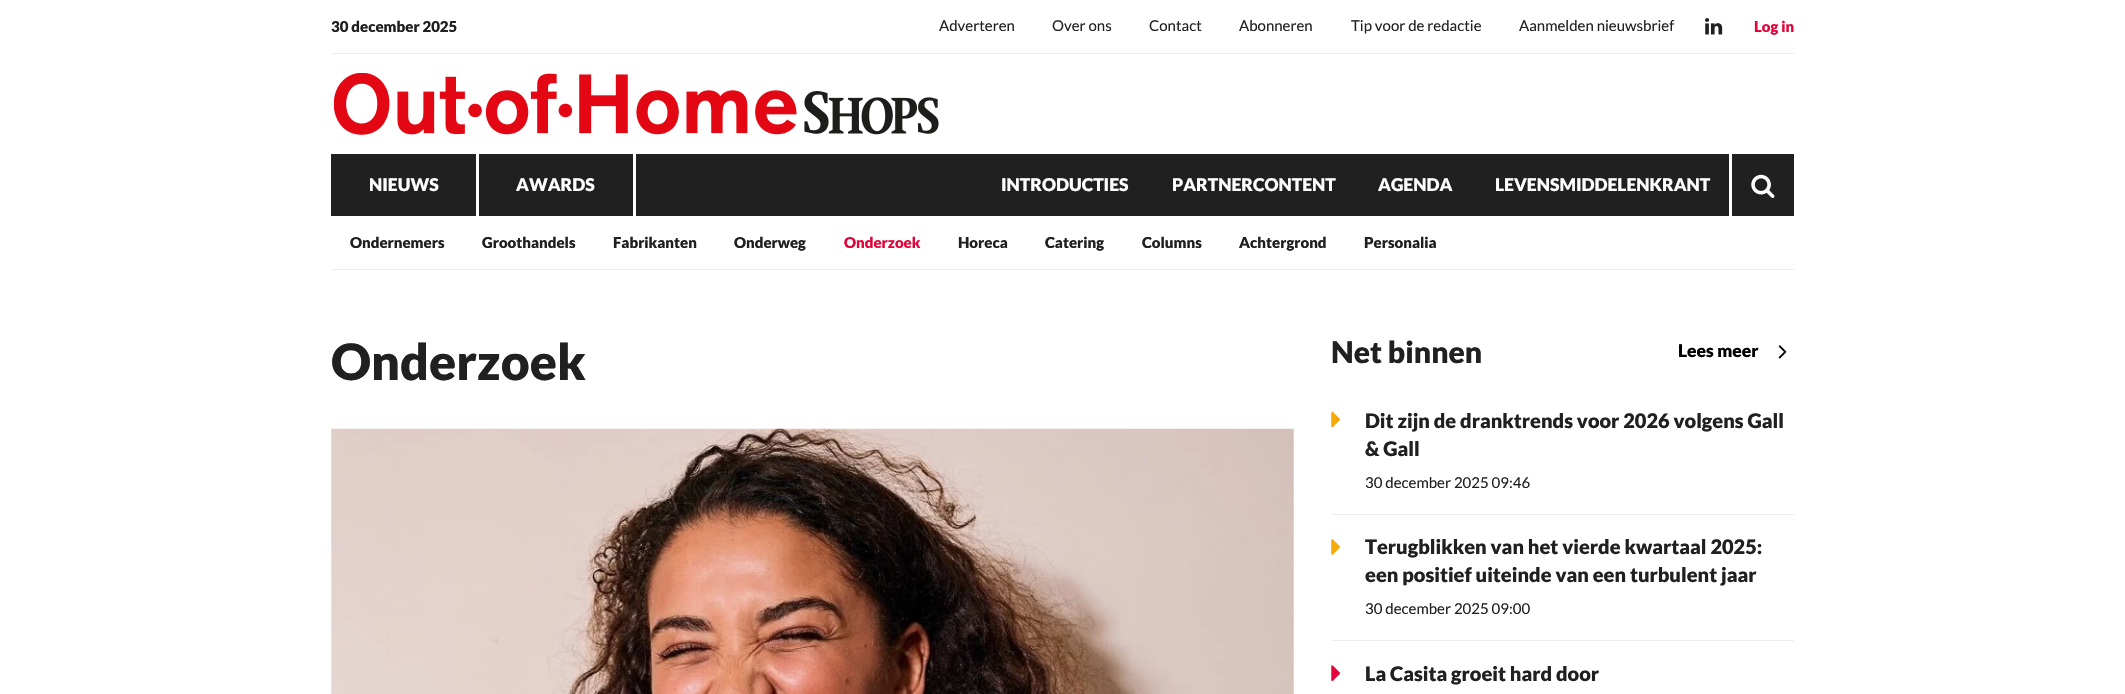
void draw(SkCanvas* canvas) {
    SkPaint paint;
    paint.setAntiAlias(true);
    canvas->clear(0xFFFFFFFF);
    paint.setColor(0xFFEEEEEE);
    canvas->drawRect(SkRect::MakeXYWH(331, 53, 1463, 1), paint);
    SkFont font1(fontMgr->matchFamilyStyle("Lato", SkFontStyle(900, SkFontStyle::kNormal_Width, SkFontStyle::kUpright_Slant)), 15);
    font1.setSubpixel(true);
    paint.setColor(0xFF202020);
    canvas->drawString("30 december 2025", 331, 32, font1, paint);
    SkFont font2(fontMgr->matchFamilyStyle("Lato", SkFontStyle::Normal()), 15);
    font2.setSubpixel(true);
    canvas->drawString("Adverteren", 939, 31, font2, paint);
    canvas->drawString("Over ons", 1052, 31, font2, paint);
    canvas->drawString("Contact", 1149, 31, font2, paint);
    canvas->drawString("Abonneren", 1239, 31, font2, paint);
    canvas->drawString("Tip voor de redactie", 1351, 31, font2, paint);
    canvas->drawString("Aanmelden nieuwsbrief", 1519, 31, font2, paint);
    canvas->drawImageRect(SkImages::DeferredFromEncodedData(SkData::MakeFromFileName("img1.png")), SkRect::MakeXYWH(1705, 18, 18, 17), SkSamplingOptions());
    paint.setColor(0xFFE3043B);
    canvas->drawString("Log in", 1754, 32, font1, paint);
    canvas->drawImageRect(SkImages::DeferredFromEncodedData(SkData::MakeFromFileName("img2.png")), SkRect::MakeXYWH(334, 73, 605, 62), SkSamplingOptions());
    paint.setColor(0xFF202020);
    canvas->drawRect(SkRect::MakeXYWH(331, 154, 1463, 62), paint);
    paint.setColor(0xFFFFFFFF);
    canvas->drawRect(SkRect::MakeXYWH(476, 154, 3, 62), paint);
    SkFont font3(fontMgr->matchFamilyStyle("Lato", SkFontStyle(900, SkFontStyle::kNormal_Width, SkFontStyle::kUpright_Slant)), 17.5f);
    font3.setSubpixel(true);
    canvas->drawString("NIEUWS", 369, 191, font3, paint);
    canvas->drawRect(SkRect::MakeXYWH(633, 154, 3, 62), paint);
    canvas->drawString("AWARDS", 516, 191, font3, paint);
    canvas->drawString("INTRODUCTIES", 1001, 191, font3, paint);
    canvas->drawString("PARTNERCONTENT", 1172, 191, font3, paint);
    canvas->drawString("AGENDA", 1378, 191, font3, paint);
    canvas->drawString("LEVENSMIDDELENKRANT", 1495, 191, font3, paint);
    canvas->drawRect(SkRect::MakeXYWH(1729, 154, 3, 62), paint);
    canvas->drawImageRect(SkImages::DeferredFromEncodedData(SkData::MakeFromFileName("img3.png")), SkRect::MakeXYWH(1751, 174, 24, 24), SkSamplingOptions());
    paint.setColor(0xFFEEEEEE);
    canvas->drawRect(SkRect::MakeXYWH(331, 269, 1463, 1), paint);
    paint.setColor(0xFF202020);
    canvas->drawString("Ondernemers", 350, 248, font1, paint);
    canvas->drawString("Groothandels", 482, 248, font1, paint);
    canvas->drawString("Fabrikanten", 613, 248, font1, paint);
    canvas->drawString("Onderweg", 734, 248, font1, paint);
    paint.setColor(0xFFE3043B);
    canvas->drawString("Onderzoek", 844, 248, font1, paint);
    paint.setColor(0xFF202020);
    canvas->drawString("Horeca", 958, 248, font1, paint);
    canvas->drawString("Catering", 1045, 248, font1, paint);
    canvas->drawString("Columns", 1142, 248, font1, paint);
    canvas->drawString("Achtergrond", 1239, 248, font1, paint);
    canvas->drawString("Personalia", 1364, 248, font1, paint);
    SkFont font4(fontMgr->matchFamilyStyle("Lato", SkFontStyle(900, SkFontStyle::kNormal_Width, SkFontStyle::kUpright_Slant)), 50);
    font4.setSubpixel(true);
    canvas->drawString("Onderzoek", 331, 380, font4, paint);
    canvas->drawImageRect(SkImages::DeferredFromEncodedData(SkData::MakeFromFileName("img4.png")), SkRect::MakeXYWH(331, 428, 963, 266), SkSamplingOptions());
    SkFont font5(fontMgr->matchFamilyStyle("Lato", SkFontStyle(900, SkFontStyle::kNormal_Width, SkFontStyle::kUpright_Slant)), 30);
    font5.setSubpixel(true);
    canvas->drawString("Net binnen", 1331, 363, font5, paint);
    paint.setColor(0xFF000000);
    canvas->drawString("Lees meer", 1678, 357, font3, paint);
    canvas->drawImageRect(SkImages::DeferredFromEncodedData(SkData::MakeFromFileName("img5.png")), SkRect::MakeXYWH(1778, 345, 9, 14), SkSamplingOptions());
    paint.setColor(0xFFEEEEEE);
    canvas->drawRect(SkRect::MakeXYWH(1331, 514, 463, 1), paint);
    canvas->drawImageRect(SkImages::DeferredFromEncodedData(SkData::MakeFromFileName("img6.png")), SkRect::MakeXYWH(1331, 411, 10, 17), SkSamplingOptions());
    SkFont font6(fontMgr->matchFamilyStyle("Lato", SkFontStyle(900, SkFontStyle::kNormal_Width, SkFontStyle::kUpright_Slant)), 20);
    font6.setSubpixel(true);
    paint.setColor(0xFF202020);
    canvas->drawString("Dit zijn de dranktrends voor 2026 volgens Gall", 1365, 428, font6, paint);
    canvas->drawString("& Gall", 1365, 456, font6, paint);
    canvas->drawString("30 december 2025 09:46", 1365, 488, font2, paint);
    paint.setColor(0xFFEEEEEE);
    canvas->drawRect(SkRect::MakeXYWH(1331, 640, 463, 1), paint);
    canvas->drawImageRect(SkImages::DeferredFromEncodedData(SkData::MakeFromFileName("img7.png")), SkRect::MakeXYWH(1331, 539, 9, 16), SkSamplingOptions());
    paint.setColor(0xFF202020);
    canvas->drawString("Terugblikken van het vierde kwartaal 2025:", 1365, 554, font6, paint);
    canvas->drawString("een positief uiteinde van een turbulent jaar", 1365, 582, font6, paint);
    canvas->drawString("30 december 2025 09:00", 1365, 614, font2, paint);
    canvas->drawImageRect(SkImages::DeferredFromEncodedData(SkData::MakeFromFileName("img8.png")), SkRect::MakeXYWH(1331, 665, 10, 17), SkSamplingOptions());
    canvas->drawString("La Casita groeit hard door", 1365, 681, font6, paint);
}
